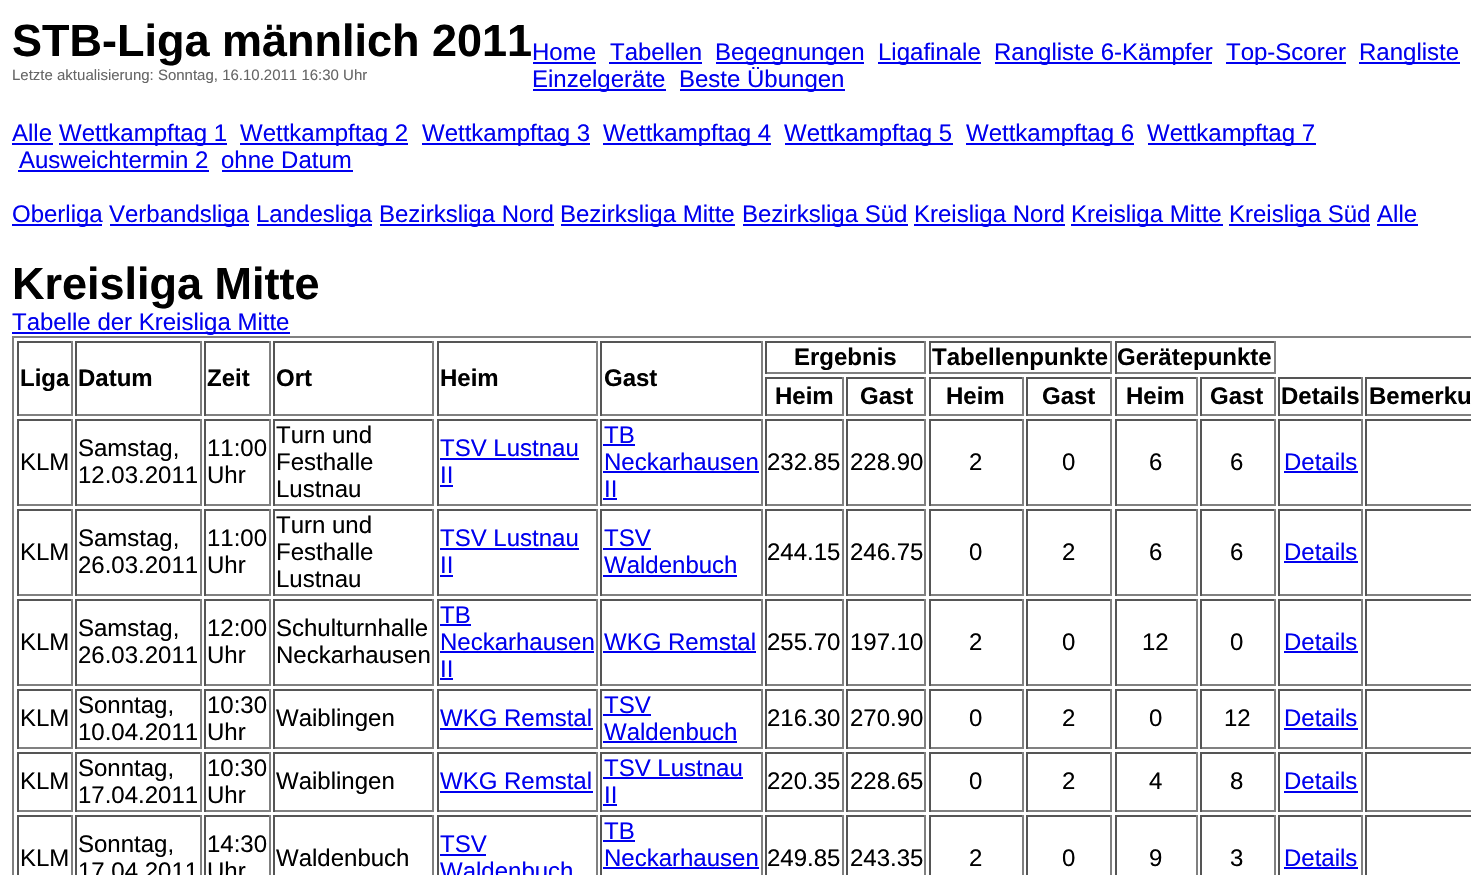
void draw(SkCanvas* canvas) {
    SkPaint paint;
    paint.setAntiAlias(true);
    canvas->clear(0xFFFFFFFF);
    SkFont font1(fontMgr->matchFamilyStyle("Liberation Sans", SkFontStyle::Bold()), 45);
    font1.setSubpixel(true);
    paint.setColor(0xFF000000);
    canvas->drawString("STB-Liga männlich 2011", 12, 56, font1, paint);
    SkFont font2(fontMgr->matchFamilyStyle("Liberation Sans", SkFontStyle::Normal()), 15);
    font2.setSubpixel(true);
    paint.setColor(0xFF666666);
    canvas->drawString("Letzte aktualisierung: Sonntag, 16.10.2011 16:30 Uhr", 12, 80, font2, paint);
    SkFont font3(fontMgr->matchFamilyStyle("Liberation Sans", SkFontStyle::Normal()), 24);
    font3.setSubpixel(true);
    paint.setColor(0xFF0000EE);
    canvas->drawString("Home", 532, 60, font3, paint);
    canvas->drawRect(SkRect::MakeXYWH(533, 62, 63, 2), paint);
    canvas->drawString("Tabellen", 610, 60, font3, paint);
    canvas->drawRect(SkRect::MakeXYWH(609, 62, 93, 2), paint);
    canvas->drawRect(SkRect::MakeXYWH(716, 62, 148, 2), paint);
    canvas->drawString("Begegnungen", 715, 60, font3, paint);
    canvas->drawRect(SkRect::MakeXYWH(878, 62, 103, 2), paint);
    canvas->drawString("Ligafinale", 878, 60, font3, paint);
    canvas->drawRect(SkRect::MakeXYWH(995, 62, 217, 2), paint);
    canvas->drawString("Rangliste 6-Kämpfer", 994, 60, font3, paint);
    canvas->drawRect(SkRect::MakeXYWH(1226, 62, 120, 2), paint);
    canvas->drawString("Top-Scorer", 1226, 60, font3, paint);
    canvas->drawRect(SkRect::MakeXYWH(1359, 62, 101, 2), paint);
    canvas->drawString("Rangliste", 1359, 60, font3, paint);
    canvas->drawRect(SkRect::MakeXYWH(533, 89, 133, 2), paint);
    canvas->drawString("Einzelgeräte", 532, 87, font3, paint);
    canvas->drawRect(SkRect::MakeXYWH(680, 89, 165, 2), paint);
    canvas->drawString("Beste Übungen", 679, 87, font3, paint);
    canvas->drawString("Alle", 12, 141, font3, paint);
    canvas->drawRect(SkRect::MakeXYWH(12, 143, 41, 2), paint);
    canvas->drawRect(SkRect::MakeXYWH(59, 143, 168, 2), paint);
    canvas->drawString("Wettkampftag 1", 59, 141, font3, paint);
    canvas->drawRect(SkRect::MakeXYWH(240, 143, 168, 2), paint);
    canvas->drawString("Wettkampftag 2", 240, 141, font3, paint);
    canvas->drawRect(SkRect::MakeXYWH(422, 143, 168, 2), paint);
    canvas->drawString("Wettkampftag 3", 422, 141, font3, paint);
    canvas->drawRect(SkRect::MakeXYWH(603, 143, 168, 2), paint);
    canvas->drawString("Wettkampftag 4", 603, 141, font3, paint);
    canvas->drawRect(SkRect::MakeXYWH(785, 143, 168, 2), paint);
    canvas->drawString("Wettkampftag 5", 784, 141, font3, paint);
    canvas->drawRect(SkRect::MakeXYWH(966, 143, 168, 2), paint);
    canvas->drawString("Wettkampftag 6", 966, 141, font3, paint);
    canvas->drawRect(SkRect::MakeXYWH(1148, 143, 168, 2), paint);
    canvas->drawString("Wettkampftag 7", 1147, 141, font3, paint);
    canvas->drawString("Ausweichtermin 2", 19, 168, font3, paint);
    canvas->drawRect(SkRect::MakeXYWH(18, 170, 191, 2), paint);
    canvas->drawString("ohne Datum", 221, 168, font3, paint);
    canvas->drawRect(SkRect::MakeXYWH(222, 170, 131, 2), paint);
    canvas->drawRect(SkRect::MakeXYWH(12, 224, 90, 2), paint);
    canvas->drawString("Oberliga", 12, 222, font3, paint);
    canvas->drawRect(SkRect::MakeXYWH(110, 224, 139, 2), paint);
    canvas->drawString("Verbandsliga", 109, 222, font3, paint);
    canvas->drawRect(SkRect::MakeXYWH(257, 224, 115, 2), paint);
    canvas->drawString("Landesliga", 256, 222, font3, paint);
    canvas->drawRect(SkRect::MakeXYWH(380, 224, 174, 2), paint);
    canvas->drawString("Bezirksliga Nord", 379, 222, font3, paint);
    canvas->drawRect(SkRect::MakeXYWH(561, 224, 174, 2), paint);
    canvas->drawString("Bezirksliga Mitte", 560, 222, font3, paint);
    canvas->drawRect(SkRect::MakeXYWH(743, 224, 165, 2), paint);
    canvas->drawString("Bezirksliga Süd", 742, 222, font3, paint);
    canvas->drawRect(SkRect::MakeXYWH(914, 224, 151, 2), paint);
    canvas->drawString("Kreisliga Nord", 914, 222, font3, paint);
    canvas->drawRect(SkRect::MakeXYWH(1071, 224, 152, 2), paint);
    canvas->drawString("Kreisliga Mitte", 1071, 222, font3, paint);
    canvas->drawRect(SkRect::MakeXYWH(1229, 224, 141, 2), paint);
    canvas->drawString("Kreisliga Süd Alle", 1229, 222, font3, paint);
    canvas->drawRect(SkRect::MakeXYWH(1377, 224, 41, 2), paint);
    paint.setColor(0xFF000000);
    canvas->drawString("Kreisliga Mitte", 12, 299, font1, paint);
    paint.setColor(0xFF0000EE);
    canvas->drawRect(SkRect::MakeXYWH(12, 332, 278, 2), paint);
    canvas->drawString("Tabelle der Kreisliga Mitte", 12, 330, font3, paint);
    paint.setColor(0xFF808080);
    canvas->drawRect(SkRect::MakeXYWH(12, 336, 1459, 2), paint);
    canvas->drawRect(SkRect::MakeXYWH(12, 336, 2, 539), paint);
    paint.setColor(0xFF555555);
    canvas->drawRect(SkRect::MakeXYWH(765, 341, 161, 2), paint);
    paint.setColor(0xFF808080);
    canvas->drawRect(SkRect::MakeXYWH(924, 341, 2, 33), paint);
    canvas->drawRect(SkRect::MakeXYWH(765, 372, 161, 2), paint);
    paint.setColor(0xFF555555);
    canvas->drawRect(SkRect::MakeXYWH(765, 341, 2, 33), paint);
    SkFont font4(fontMgr->matchFamilyStyle("Liberation Sans", SkFontStyle::Bold()), 24);
    font4.setSubpixel(true);
    paint.setColor(0xFF000000);
    canvas->drawString("Ergebnis", 794, 365, font4, paint);
    paint.setColor(0xFF555555);
    canvas->drawRect(SkRect::MakeXYWH(929, 341, 183, 2), paint);
    paint.setColor(0xFF808080);
    canvas->drawRect(SkRect::MakeXYWH(1110, 341, 2, 33), paint);
    canvas->drawRect(SkRect::MakeXYWH(929, 372, 183, 2), paint);
    paint.setColor(0xFF555555);
    canvas->drawRect(SkRect::MakeXYWH(929, 341, 2, 33), paint);
    paint.setColor(0xFF000000);
    canvas->drawString("Tabellenpunkte", 932, 365, font4, paint);
    paint.setColor(0xFF555555);
    canvas->drawRect(SkRect::MakeXYWH(1115, 341, 160, 2), paint);
    paint.setColor(0xFF808080);
    canvas->drawRect(SkRect::MakeXYWH(1274, 341, 2, 33), paint);
    canvas->drawRect(SkRect::MakeXYWH(1115, 372, 160, 2), paint);
    paint.setColor(0xFF555555);
    canvas->drawRect(SkRect::MakeXYWH(1115, 341, 2, 33), paint);
    paint.setColor(0xFF000000);
    canvas->drawString("Gerätepunkte", 1117, 365, font4, paint);
    paint.setColor(0xFF555555);
    canvas->drawRect(SkRect::MakeXYWH(17, 341, 55, 2), paint);
    paint.setColor(0xFF808080);
    canvas->drawRect(SkRect::MakeXYWH(71, 341, 2, 75), paint);
    canvas->drawRect(SkRect::MakeXYWH(17, 414, 55, 2), paint);
    paint.setColor(0xFF555555);
    canvas->drawRect(SkRect::MakeXYWH(17, 341, 2, 75), paint);
    paint.setColor(0xFF000000);
    canvas->drawString("Liga", 20, 386, font4, paint);
    paint.setColor(0xFF555555);
    canvas->drawRect(SkRect::MakeXYWH(75, 341, 126, 2), paint);
    paint.setColor(0xFF808080);
    canvas->drawRect(SkRect::MakeXYWH(200, 341, 2, 75), paint);
    canvas->drawRect(SkRect::MakeXYWH(75, 414, 126, 2), paint);
    paint.setColor(0xFF555555);
    canvas->drawRect(SkRect::MakeXYWH(75, 341, 2, 75), paint);
    paint.setColor(0xFF000000);
    canvas->drawString("Datum", 78, 386, font4, paint);
    paint.setColor(0xFF555555);
    canvas->drawRect(SkRect::MakeXYWH(204, 341, 66, 2), paint);
    paint.setColor(0xFF808080);
    canvas->drawRect(SkRect::MakeXYWH(269, 341, 2, 75), paint);
    canvas->drawRect(SkRect::MakeXYWH(204, 414, 66, 2), paint);
    paint.setColor(0xFF555555);
    canvas->drawRect(SkRect::MakeXYWH(204, 341, 2, 75), paint);
    paint.setColor(0xFF000000);
    canvas->drawString("Zeit", 207, 386, font4, paint);
    paint.setColor(0xFF555555);
    canvas->drawRect(SkRect::MakeXYWH(273, 341, 161, 2), paint);
    paint.setColor(0xFF808080);
    canvas->drawRect(SkRect::MakeXYWH(432, 341, 2, 75), paint);
    canvas->drawRect(SkRect::MakeXYWH(273, 414, 161, 2), paint);
    paint.setColor(0xFF555555);
    canvas->drawRect(SkRect::MakeXYWH(273, 341, 2, 75), paint);
    paint.setColor(0xFF000000);
    canvas->drawString("Ort", 276, 386, font4, paint);
    paint.setColor(0xFF555555);
    canvas->drawRect(SkRect::MakeXYWH(437, 341, 160, 2), paint);
    paint.setColor(0xFF808080);
    canvas->drawRect(SkRect::MakeXYWH(596, 341, 2, 75), paint);
    canvas->drawRect(SkRect::MakeXYWH(437, 414, 160, 2), paint);
    paint.setColor(0xFF555555);
    canvas->drawRect(SkRect::MakeXYWH(437, 341, 2, 75), paint);
    paint.setColor(0xFF000000);
    canvas->drawString("Heim", 440, 386, font4, paint);
    paint.setColor(0xFF555555);
    canvas->drawRect(SkRect::MakeXYWH(600, 341, 162, 2), paint);
    paint.setColor(0xFF808080);
    canvas->drawRect(SkRect::MakeXYWH(761, 341, 2, 75), paint);
    canvas->drawRect(SkRect::MakeXYWH(600, 414, 162, 2), paint);
    paint.setColor(0xFF555555);
    canvas->drawRect(SkRect::MakeXYWH(600, 341, 2, 75), paint);
    paint.setColor(0xFF000000);
    canvas->drawString("Gast", 604, 386, font4, paint);
    paint.setColor(0xFF555555);
    canvas->drawRect(SkRect::MakeXYWH(765, 377, 78, 2), paint);
    paint.setColor(0xFF808080);
    canvas->drawRect(SkRect::MakeXYWH(842, 377, 2, 39), paint);
    canvas->drawRect(SkRect::MakeXYWH(765, 414, 78, 2), paint);
    paint.setColor(0xFF555555);
    canvas->drawRect(SkRect::MakeXYWH(765, 377, 2, 39), paint);
    paint.setColor(0xFF000000);
    canvas->drawString("Heim", 775, 404, font4, paint);
    paint.setColor(0xFF555555);
    canvas->drawRect(SkRect::MakeXYWH(846, 377, 80, 2), paint);
    paint.setColor(0xFF808080);
    canvas->drawRect(SkRect::MakeXYWH(924, 377, 2, 39), paint);
    canvas->drawRect(SkRect::MakeXYWH(846, 414, 80, 2), paint);
    paint.setColor(0xFF555555);
    canvas->drawRect(SkRect::MakeXYWH(846, 377, 2, 39), paint);
    paint.setColor(0xFF000000);
    canvas->drawString("Gast", 860, 404, font4, paint);
    paint.setColor(0xFF555555);
    canvas->drawRect(SkRect::MakeXYWH(929, 377, 94, 2), paint);
    paint.setColor(0xFF808080);
    canvas->drawRect(SkRect::MakeXYWH(1022, 377, 2, 39), paint);
    canvas->drawRect(SkRect::MakeXYWH(929, 414, 94, 2), paint);
    paint.setColor(0xFF555555);
    canvas->drawRect(SkRect::MakeXYWH(929, 377, 2, 39), paint);
    paint.setColor(0xFF000000);
    canvas->drawString("Heim", 946, 404, font4, paint);
    paint.setColor(0xFF555555);
    canvas->drawRect(SkRect::MakeXYWH(1026, 377, 86, 2), paint);
    paint.setColor(0xFF808080);
    canvas->drawRect(SkRect::MakeXYWH(1110, 377, 2, 39), paint);
    canvas->drawRect(SkRect::MakeXYWH(1026, 414, 86, 2), paint);
    paint.setColor(0xFF555555);
    canvas->drawRect(SkRect::MakeXYWH(1026, 377, 2, 39), paint);
    paint.setColor(0xFF000000);
    canvas->drawString("Gast", 1042, 404, font4, paint);
    paint.setColor(0xFF555555);
    canvas->drawRect(SkRect::MakeXYWH(1115, 377, 82, 2), paint);
    paint.setColor(0xFF808080);
    canvas->drawRect(SkRect::MakeXYWH(1196, 377, 2, 39), paint);
    canvas->drawRect(SkRect::MakeXYWH(1115, 414, 82, 2), paint);
    paint.setColor(0xFF555555);
    canvas->drawRect(SkRect::MakeXYWH(1115, 377, 2, 39), paint);
    paint.setColor(0xFF000000);
    canvas->drawString("Heim", 1126, 404, font4, paint);
    paint.setColor(0xFF555555);
    canvas->drawRect(SkRect::MakeXYWH(1200, 377, 75, 2), paint);
    paint.setColor(0xFF808080);
    canvas->drawRect(SkRect::MakeXYWH(1274, 377, 2, 39), paint);
    canvas->drawRect(SkRect::MakeXYWH(1200, 414, 75, 2), paint);
    paint.setColor(0xFF555555);
    canvas->drawRect(SkRect::MakeXYWH(1200, 377, 2, 39), paint);
    paint.setColor(0xFF000000);
    canvas->drawString("Gast", 1210, 404, font4, paint);
    paint.setColor(0xFF555555);
    canvas->drawRect(SkRect::MakeXYWH(1278, 377, 84, 2), paint);
    paint.setColor(0xFF808080);
    canvas->drawRect(SkRect::MakeXYWH(1361, 377, 2, 39), paint);
    canvas->drawRect(SkRect::MakeXYWH(1278, 414, 84, 2), paint);
    paint.setColor(0xFF555555);
    canvas->drawRect(SkRect::MakeXYWH(1278, 377, 2, 39), paint);
    paint.setColor(0xFF000000);
    canvas->drawString("Details", 1281, 404, font4, paint);
    paint.setColor(0xFF555555);
    canvas->drawRect(SkRect::MakeXYWH(1365, 377, 106, 2), paint);
    paint.setColor(0xFF808080);
    canvas->drawRect(SkRect::MakeXYWH(1365, 414, 106, 2), paint);
    paint.setColor(0xFF555555);
    canvas->drawRect(SkRect::MakeXYWH(1365, 377, 2, 39), paint);
    paint.setColor(0xFF000000);
    canvas->drawString("Bemerku", 1369, 404, font4, paint);
    paint.setColor(0xFF555555);
    canvas->drawRect(SkRect::MakeXYWH(17, 419, 55, 2), paint);
    paint.setColor(0xFF808080);
    canvas->drawRect(SkRect::MakeXYWH(71, 419, 2, 87), paint);
    canvas->drawRect(SkRect::MakeXYWH(17, 504, 55, 2), paint);
    paint.setColor(0xFF555555);
    canvas->drawRect(SkRect::MakeXYWH(17, 419, 2, 87), paint);
    paint.setColor(0xFF000000);
    canvas->drawString("KLM", 20, 470, font3, paint);
    paint.setColor(0xFF555555);
    canvas->drawRect(SkRect::MakeXYWH(75, 419, 126, 2), paint);
    paint.setColor(0xFF808080);
    canvas->drawRect(SkRect::MakeXYWH(200, 419, 2, 87), paint);
    canvas->drawRect(SkRect::MakeXYWH(75, 504, 126, 2), paint);
    paint.setColor(0xFF555555);
    canvas->drawRect(SkRect::MakeXYWH(75, 419, 2, 87), paint);
    paint.setColor(0xFF000000);
    canvas->drawString("Samstag,", 78, 456, font3, paint);
    canvas->drawString("12.03.2011", 78, 483, font3, paint);
    paint.setColor(0xFF555555);
    canvas->drawRect(SkRect::MakeXYWH(204, 419, 66, 2), paint);
    paint.setColor(0xFF808080);
    canvas->drawRect(SkRect::MakeXYWH(269, 419, 2, 87), paint);
    canvas->drawRect(SkRect::MakeXYWH(204, 504, 66, 2), paint);
    paint.setColor(0xFF555555);
    canvas->drawRect(SkRect::MakeXYWH(204, 419, 2, 87), paint);
    paint.setColor(0xFF000000);
    canvas->drawString("11:00", 207, 456, font3, paint);
    canvas->drawString("Uhr", 207, 483, font3, paint);
    paint.setColor(0xFF555555);
    canvas->drawRect(SkRect::MakeXYWH(273, 419, 161, 2), paint);
    paint.setColor(0xFF808080);
    canvas->drawRect(SkRect::MakeXYWH(432, 419, 2, 87), paint);
    canvas->drawRect(SkRect::MakeXYWH(273, 504, 161, 2), paint);
    paint.setColor(0xFF555555);
    canvas->drawRect(SkRect::MakeXYWH(273, 419, 2, 87), paint);
    paint.setColor(0xFF000000);
    canvas->drawString("Turn und", 276, 443, font3, paint);
    canvas->drawString("Festhalle", 276, 470, font3, paint);
    canvas->drawString("Lustnau", 276, 497, font3, paint);
    paint.setColor(0xFF555555);
    canvas->drawRect(SkRect::MakeXYWH(437, 419, 160, 2), paint);
    paint.setColor(0xFF808080);
    canvas->drawRect(SkRect::MakeXYWH(596, 419, 2, 87), paint);
    canvas->drawRect(SkRect::MakeXYWH(437, 504, 160, 2), paint);
    paint.setColor(0xFF555555);
    canvas->drawRect(SkRect::MakeXYWH(437, 419, 2, 87), paint);
    paint.setColor(0xFF0000EE);
    canvas->drawString("TSV Lustnau", 440, 456, font3, paint);
    canvas->drawRect(SkRect::MakeXYWH(440, 458, 139, 2), paint);
    canvas->drawString("II", 440, 483, font3, paint);
    canvas->drawRect(SkRect::MakeXYWH(440, 485, 13, 2), paint);
    paint.setColor(0xFF555555);
    canvas->drawRect(SkRect::MakeXYWH(600, 419, 162, 2), paint);
    paint.setColor(0xFF808080);
    canvas->drawRect(SkRect::MakeXYWH(761, 419, 2, 87), paint);
    canvas->drawRect(SkRect::MakeXYWH(600, 504, 162, 2), paint);
    paint.setColor(0xFF555555);
    canvas->drawRect(SkRect::MakeXYWH(600, 419, 2, 87), paint);
    paint.setColor(0xFF0000EE);
    canvas->drawString("TB", 604, 443, font3, paint);
    canvas->drawRect(SkRect::MakeXYWH(603, 444, 32, 2), paint);
    canvas->drawString("Neckarhausen", 604, 470, font3, paint);
    canvas->drawRect(SkRect::MakeXYWH(603, 471, 156, 2), paint);
    canvas->drawString("II", 604, 497, font3, paint);
    canvas->drawRect(SkRect::MakeXYWH(603, 498, 14, 2), paint);
    paint.setColor(0xFF555555);
    canvas->drawRect(SkRect::MakeXYWH(765, 419, 78, 2), paint);
    paint.setColor(0xFF808080);
    canvas->drawRect(SkRect::MakeXYWH(842, 419, 2, 87), paint);
    canvas->drawRect(SkRect::MakeXYWH(765, 504, 78, 2), paint);
    paint.setColor(0xFF555555);
    canvas->drawRect(SkRect::MakeXYWH(765, 419, 2, 87), paint);
    paint.setColor(0xFF000000);
    canvas->drawString("232.85", 767, 470, font3, paint);
    paint.setColor(0xFF555555);
    canvas->drawRect(SkRect::MakeXYWH(846, 419, 80, 2), paint);
    paint.setColor(0xFF808080);
    canvas->drawRect(SkRect::MakeXYWH(924, 419, 2, 87), paint);
    canvas->drawRect(SkRect::MakeXYWH(846, 504, 80, 2), paint);
    paint.setColor(0xFF555555);
    canvas->drawRect(SkRect::MakeXYWH(846, 419, 2, 87), paint);
    paint.setColor(0xFF000000);
    canvas->drawString("228.90", 850, 470, font3, paint);
    paint.setColor(0xFF555555);
    canvas->drawRect(SkRect::MakeXYWH(929, 419, 94, 2), paint);
    paint.setColor(0xFF808080);
    canvas->drawRect(SkRect::MakeXYWH(1022, 419, 2, 87), paint);
    canvas->drawRect(SkRect::MakeXYWH(929, 504, 94, 2), paint);
    paint.setColor(0xFF555555);
    canvas->drawRect(SkRect::MakeXYWH(929, 419, 2, 87), paint);
    paint.setColor(0xFF000000);
    canvas->drawString("2", 969, 470, font3, paint);
    paint.setColor(0xFF555555);
    canvas->drawRect(SkRect::MakeXYWH(1026, 419, 86, 2), paint);
    paint.setColor(0xFF808080);
    canvas->drawRect(SkRect::MakeXYWH(1110, 419, 2, 87), paint);
    canvas->drawRect(SkRect::MakeXYWH(1026, 504, 86, 2), paint);
    paint.setColor(0xFF555555);
    canvas->drawRect(SkRect::MakeXYWH(1026, 419, 2, 87), paint);
    paint.setColor(0xFF000000);
    canvas->drawString("0", 1062, 470, font3, paint);
    paint.setColor(0xFF555555);
    canvas->drawRect(SkRect::MakeXYWH(1115, 419, 82, 2), paint);
    paint.setColor(0xFF808080);
    canvas->drawRect(SkRect::MakeXYWH(1196, 419, 2, 87), paint);
    canvas->drawRect(SkRect::MakeXYWH(1115, 504, 82, 2), paint);
    paint.setColor(0xFF555555);
    canvas->drawRect(SkRect::MakeXYWH(1115, 419, 2, 87), paint);
    paint.setColor(0xFF000000);
    canvas->drawString("6", 1149, 470, font3, paint);
    paint.setColor(0xFF555555);
    canvas->drawRect(SkRect::MakeXYWH(1200, 419, 75, 2), paint);
    paint.setColor(0xFF808080);
    canvas->drawRect(SkRect::MakeXYWH(1274, 419, 2, 87), paint);
    canvas->drawRect(SkRect::MakeXYWH(1200, 504, 75, 2), paint);
    paint.setColor(0xFF555555);
    canvas->drawRect(SkRect::MakeXYWH(1200, 419, 2, 87), paint);
    paint.setColor(0xFF000000);
    canvas->drawString("6", 1230, 470, font3, paint);
    paint.setColor(0xFF555555);
    canvas->drawRect(SkRect::MakeXYWH(1278, 419, 84, 2), paint);
    paint.setColor(0xFF808080);
    canvas->drawRect(SkRect::MakeXYWH(1361, 419, 2, 87), paint);
    canvas->drawRect(SkRect::MakeXYWH(1278, 504, 84, 2), paint);
    paint.setColor(0xFF555555);
    canvas->drawRect(SkRect::MakeXYWH(1278, 419, 2, 87), paint);
    paint.setColor(0xFF0000EE);
    canvas->drawString("Details", 1284, 470, font3, paint);
    canvas->drawRect(SkRect::MakeXYWH(1284, 471, 74, 2), paint);
    paint.setColor(0xFF555555);
    canvas->drawRect(SkRect::MakeXYWH(1365, 419, 106, 2), paint);
    paint.setColor(0xFF808080);
    canvas->drawRect(SkRect::MakeXYWH(1365, 504, 106, 2), paint);
    paint.setColor(0xFF555555);
    canvas->drawRect(SkRect::MakeXYWH(1365, 419, 2, 87), paint);
    canvas->drawRect(SkRect::MakeXYWH(17, 509, 55, 2), paint);
    paint.setColor(0xFF808080);
    canvas->drawRect(SkRect::MakeXYWH(71, 509, 2, 87), paint);
    canvas->drawRect(SkRect::MakeXYWH(17, 594, 55, 2), paint);
    paint.setColor(0xFF555555);
    canvas->drawRect(SkRect::MakeXYWH(17, 509, 2, 87), paint);
    paint.setColor(0xFF000000);
    canvas->drawString("KLM", 20, 560, font3, paint);
    paint.setColor(0xFF555555);
    canvas->drawRect(SkRect::MakeXYWH(75, 509, 126, 2), paint);
    paint.setColor(0xFF808080);
    canvas->drawRect(SkRect::MakeXYWH(200, 509, 2, 87), paint);
    canvas->drawRect(SkRect::MakeXYWH(75, 594, 126, 2), paint);
    paint.setColor(0xFF555555);
    canvas->drawRect(SkRect::MakeXYWH(75, 509, 2, 87), paint);
    paint.setColor(0xFF000000);
    canvas->drawString("Samstag,", 78, 546, font3, paint);
    canvas->drawString("26.03.2011", 78, 573, font3, paint);
    paint.setColor(0xFF555555);
    canvas->drawRect(SkRect::MakeXYWH(204, 509, 66, 2), paint);
    paint.setColor(0xFF808080);
    canvas->drawRect(SkRect::MakeXYWH(269, 509, 2, 87), paint);
    canvas->drawRect(SkRect::MakeXYWH(204, 594, 66, 2), paint);
    paint.setColor(0xFF555555);
    canvas->drawRect(SkRect::MakeXYWH(204, 509, 2, 87), paint);
    paint.setColor(0xFF000000);
    canvas->drawString("11:00", 207, 546, font3, paint);
    canvas->drawString("Uhr", 207, 573, font3, paint);
    paint.setColor(0xFF555555);
    canvas->drawRect(SkRect::MakeXYWH(273, 509, 161, 2), paint);
    paint.setColor(0xFF808080);
    canvas->drawRect(SkRect::MakeXYWH(432, 509, 2, 87), paint);
    canvas->drawRect(SkRect::MakeXYWH(273, 594, 161, 2), paint);
    paint.setColor(0xFF555555);
    canvas->drawRect(SkRect::MakeXYWH(273, 509, 2, 87), paint);
    paint.setColor(0xFF000000);
    canvas->drawString("Turn und", 276, 533, font3, paint);
    canvas->drawString("Festhalle", 276, 560, font3, paint);
    canvas->drawString("Lustnau", 276, 587, font3, paint);
    paint.setColor(0xFF555555);
    canvas->drawRect(SkRect::MakeXYWH(437, 509, 160, 2), paint);
    paint.setColor(0xFF808080);
    canvas->drawRect(SkRect::MakeXYWH(596, 509, 2, 87), paint);
    canvas->drawRect(SkRect::MakeXYWH(437, 594, 160, 2), paint);
    paint.setColor(0xFF555555);
    canvas->drawRect(SkRect::MakeXYWH(437, 509, 2, 87), paint);
    paint.setColor(0xFF0000EE);
    canvas->drawString("TSV Lustnau", 440, 546, font3, paint);
    canvas->drawRect(SkRect::MakeXYWH(440, 548, 139, 2), paint);
    canvas->drawString("II", 440, 573, font3, paint);
    canvas->drawRect(SkRect::MakeXYWH(440, 575, 13, 2), paint);
    paint.setColor(0xFF555555);
    canvas->drawRect(SkRect::MakeXYWH(600, 509, 162, 2), paint);
    paint.setColor(0xFF808080);
    canvas->drawRect(SkRect::MakeXYWH(761, 509, 2, 87), paint);
    canvas->drawRect(SkRect::MakeXYWH(600, 594, 162, 2), paint);
    paint.setColor(0xFF555555);
    canvas->drawRect(SkRect::MakeXYWH(600, 509, 2, 87), paint);
    paint.setColor(0xFF0000EE);
    canvas->drawString("TSV", 604, 546, font3, paint);
    canvas->drawRect(SkRect::MakeXYWH(603, 548, 48, 2), paint);
    canvas->drawString("Waldenbuch", 604, 573, font3, paint);
    canvas->drawRect(SkRect::MakeXYWH(603, 575, 134, 2), paint);
    paint.setColor(0xFF555555);
    canvas->drawRect(SkRect::MakeXYWH(765, 509, 78, 2), paint);
    paint.setColor(0xFF808080);
    canvas->drawRect(SkRect::MakeXYWH(842, 509, 2, 87), paint);
    canvas->drawRect(SkRect::MakeXYWH(765, 594, 78, 2), paint);
    paint.setColor(0xFF555555);
    canvas->drawRect(SkRect::MakeXYWH(765, 509, 2, 87), paint);
    paint.setColor(0xFF000000);
    canvas->drawString("244.15", 767, 560, font3, paint);
    paint.setColor(0xFF555555);
    canvas->drawRect(SkRect::MakeXYWH(846, 509, 80, 2), paint);
    paint.setColor(0xFF808080);
    canvas->drawRect(SkRect::MakeXYWH(924, 509, 2, 87), paint);
    canvas->drawRect(SkRect::MakeXYWH(846, 594, 80, 2), paint);
    paint.setColor(0xFF555555);
    canvas->drawRect(SkRect::MakeXYWH(846, 509, 2, 87), paint);
    paint.setColor(0xFF000000);
    canvas->drawString("246.75", 850, 560, font3, paint);
    paint.setColor(0xFF555555);
    canvas->drawRect(SkRect::MakeXYWH(929, 509, 94, 2), paint);
    paint.setColor(0xFF808080);
    canvas->drawRect(SkRect::MakeXYWH(1022, 509, 2, 87), paint);
    canvas->drawRect(SkRect::MakeXYWH(929, 594, 94, 2), paint);
    paint.setColor(0xFF555555);
    canvas->drawRect(SkRect::MakeXYWH(929, 509, 2, 87), paint);
    paint.setColor(0xFF000000);
    canvas->drawString("0", 969, 560, font3, paint);
    paint.setColor(0xFF555555);
    canvas->drawRect(SkRect::MakeXYWH(1026, 509, 86, 2), paint);
    paint.setColor(0xFF808080);
    canvas->drawRect(SkRect::MakeXYWH(1110, 509, 2, 87), paint);
    canvas->drawRect(SkRect::MakeXYWH(1026, 594, 86, 2), paint);
    paint.setColor(0xFF555555);
    canvas->drawRect(SkRect::MakeXYWH(1026, 509, 2, 87), paint);
    paint.setColor(0xFF000000);
    canvas->drawString("2", 1062, 560, font3, paint);
    paint.setColor(0xFF555555);
    canvas->drawRect(SkRect::MakeXYWH(1115, 509, 82, 2), paint);
    paint.setColor(0xFF808080);
    canvas->drawRect(SkRect::MakeXYWH(1196, 509, 2, 87), paint);
    canvas->drawRect(SkRect::MakeXYWH(1115, 594, 82, 2), paint);
    paint.setColor(0xFF555555);
    canvas->drawRect(SkRect::MakeXYWH(1115, 509, 2, 87), paint);
    paint.setColor(0xFF000000);
    canvas->drawString("6", 1149, 560, font3, paint);
    paint.setColor(0xFF555555);
    canvas->drawRect(SkRect::MakeXYWH(1200, 509, 75, 2), paint);
    paint.setColor(0xFF808080);
    canvas->drawRect(SkRect::MakeXYWH(1274, 509, 2, 87), paint);
    canvas->drawRect(SkRect::MakeXYWH(1200, 594, 75, 2), paint);
    paint.setColor(0xFF555555);
    canvas->drawRect(SkRect::MakeXYWH(1200, 509, 2, 87), paint);
    paint.setColor(0xFF000000);
    canvas->drawString("6", 1230, 560, font3, paint);
    paint.setColor(0xFF555555);
    canvas->drawRect(SkRect::MakeXYWH(1278, 509, 84, 2), paint);
    paint.setColor(0xFF808080);
    canvas->drawRect(SkRect::MakeXYWH(1361, 509, 2, 87), paint);
    canvas->drawRect(SkRect::MakeXYWH(1278, 594, 84, 2), paint);
    paint.setColor(0xFF555555);
    canvas->drawRect(SkRect::MakeXYWH(1278, 509, 2, 87), paint);
    paint.setColor(0xFF0000EE);
    canvas->drawString("Details", 1284, 560, font3, paint);
    canvas->drawRect(SkRect::MakeXYWH(1284, 561, 74, 2), paint);
    paint.setColor(0xFF555555);
    canvas->drawRect(SkRect::MakeXYWH(1365, 509, 106, 2), paint);
    paint.setColor(0xFF808080);
    canvas->drawRect(SkRect::MakeXYWH(1365, 594, 106, 2), paint);
    paint.setColor(0xFF555555);
    canvas->drawRect(SkRect::MakeXYWH(1365, 509, 2, 87), paint);
    canvas->drawRect(SkRect::MakeXYWH(17, 599, 55, 2), paint);
    paint.setColor(0xFF808080);
    canvas->drawRect(SkRect::MakeXYWH(71, 599, 2, 87), paint);
    canvas->drawRect(SkRect::MakeXYWH(17, 684, 55, 2), paint);
    paint.setColor(0xFF555555);
    canvas->drawRect(SkRect::MakeXYWH(17, 599, 2, 87), paint);
    paint.setColor(0xFF000000);
    canvas->drawString("KLM", 20, 650, font3, paint);
    paint.setColor(0xFF555555);
    canvas->drawRect(SkRect::MakeXYWH(75, 599, 126, 2), paint);
    paint.setColor(0xFF808080);
    canvas->drawRect(SkRect::MakeXYWH(200, 599, 2, 87), paint);
    canvas->drawRect(SkRect::MakeXYWH(75, 684, 126, 2), paint);
    paint.setColor(0xFF555555);
    canvas->drawRect(SkRect::MakeXYWH(75, 599, 2, 87), paint);
    paint.setColor(0xFF000000);
    canvas->drawString("Samstag,", 78, 636, font3, paint);
    canvas->drawString("26.03.2011", 78, 663, font3, paint);
    paint.setColor(0xFF555555);
    canvas->drawRect(SkRect::MakeXYWH(204, 599, 66, 2), paint);
    paint.setColor(0xFF808080);
    canvas->drawRect(SkRect::MakeXYWH(269, 599, 2, 87), paint);
    canvas->drawRect(SkRect::MakeXYWH(204, 684, 66, 2), paint);
    paint.setColor(0xFF555555);
    canvas->drawRect(SkRect::MakeXYWH(204, 599, 2, 87), paint);
    paint.setColor(0xFF000000);
    canvas->drawString("12:00", 207, 636, font3, paint);
    canvas->drawString("Uhr", 207, 663, font3, paint);
    paint.setColor(0xFF555555);
    canvas->drawRect(SkRect::MakeXYWH(273, 599, 161, 2), paint);
    paint.setColor(0xFF808080);
    canvas->drawRect(SkRect::MakeXYWH(432, 599, 2, 87), paint);
    canvas->drawRect(SkRect::MakeXYWH(273, 684, 161, 2), paint);
    paint.setColor(0xFF555555);
    canvas->drawRect(SkRect::MakeXYWH(273, 599, 2, 87), paint);
    paint.setColor(0xFF000000);
    canvas->drawString("Schulturnhalle", 276, 636, font3, paint);
    canvas->drawString("Neckarhausen", 276, 663, font3, paint);
    paint.setColor(0xFF555555);
    canvas->drawRect(SkRect::MakeXYWH(437, 599, 160, 2), paint);
    paint.setColor(0xFF808080);
    canvas->drawRect(SkRect::MakeXYWH(596, 599, 2, 87), paint);
    canvas->drawRect(SkRect::MakeXYWH(437, 684, 160, 2), paint);
    paint.setColor(0xFF555555);
    canvas->drawRect(SkRect::MakeXYWH(437, 599, 2, 87), paint);
    paint.setColor(0xFF0000EE);
    canvas->drawString("TB", 440, 623, font3, paint);
    canvas->drawRect(SkRect::MakeXYWH(440, 624, 31, 2), paint);
    canvas->drawString("Neckarhausen", 440, 650, font3, paint);
    canvas->drawRect(SkRect::MakeXYWH(440, 651, 154, 2), paint);
    canvas->drawString("II", 440, 677, font3, paint);
    canvas->drawRect(SkRect::MakeXYWH(440, 678, 13, 2), paint);
    paint.setColor(0xFF555555);
    canvas->drawRect(SkRect::MakeXYWH(600, 599, 162, 2), paint);
    paint.setColor(0xFF808080);
    canvas->drawRect(SkRect::MakeXYWH(761, 599, 2, 87), paint);
    canvas->drawRect(SkRect::MakeXYWH(600, 684, 162, 2), paint);
    paint.setColor(0xFF555555);
    canvas->drawRect(SkRect::MakeXYWH(600, 599, 2, 87), paint);
    paint.setColor(0xFF0000EE);
    canvas->drawString("WKG Remstal", 604, 650, font3, paint);
    canvas->drawRect(SkRect::MakeXYWH(603, 651, 153, 2), paint);
    paint.setColor(0xFF555555);
    canvas->drawRect(SkRect::MakeXYWH(765, 599, 78, 2), paint);
    paint.setColor(0xFF808080);
    canvas->drawRect(SkRect::MakeXYWH(842, 599, 2, 87), paint);
    canvas->drawRect(SkRect::MakeXYWH(765, 684, 78, 2), paint);
    paint.setColor(0xFF555555);
    canvas->drawRect(SkRect::MakeXYWH(765, 599, 2, 87), paint);
    paint.setColor(0xFF000000);
    canvas->drawString("255.70", 767, 650, font3, paint);
    paint.setColor(0xFF555555);
    canvas->drawRect(SkRect::MakeXYWH(846, 599, 80, 2), paint);
    paint.setColor(0xFF808080);
    canvas->drawRect(SkRect::MakeXYWH(924, 599, 2, 87), paint);
    canvas->drawRect(SkRect::MakeXYWH(846, 684, 80, 2), paint);
    paint.setColor(0xFF555555);
    canvas->drawRect(SkRect::MakeXYWH(846, 599, 2, 87), paint);
    paint.setColor(0xFF000000);
    canvas->drawString("197.10", 850, 650, font3, paint);
    paint.setColor(0xFF555555);
    canvas->drawRect(SkRect::MakeXYWH(929, 599, 94, 2), paint);
    paint.setColor(0xFF808080);
    canvas->drawRect(SkRect::MakeXYWH(1022, 599, 2, 87), paint);
    canvas->drawRect(SkRect::MakeXYWH(929, 684, 94, 2), paint);
    paint.setColor(0xFF555555);
    canvas->drawRect(SkRect::MakeXYWH(929, 599, 2, 87), paint);
    paint.setColor(0xFF000000);
    canvas->drawString("2", 969, 650, font3, paint);
    paint.setColor(0xFF555555);
    canvas->drawRect(SkRect::MakeXYWH(1026, 599, 86, 2), paint);
    paint.setColor(0xFF808080);
    canvas->drawRect(SkRect::MakeXYWH(1110, 599, 2, 87), paint);
    canvas->drawRect(SkRect::MakeXYWH(1026, 684, 86, 2), paint);
    paint.setColor(0xFF555555);
    canvas->drawRect(SkRect::MakeXYWH(1026, 599, 2, 87), paint);
    paint.setColor(0xFF000000);
    canvas->drawString("0", 1062, 650, font3, paint);
    paint.setColor(0xFF555555);
    canvas->drawRect(SkRect::MakeXYWH(1115, 599, 82, 2), paint);
    paint.setColor(0xFF808080);
    canvas->drawRect(SkRect::MakeXYWH(1196, 599, 2, 87), paint);
    canvas->drawRect(SkRect::MakeXYWH(1115, 684, 82, 2), paint);
    paint.setColor(0xFF555555);
    canvas->drawRect(SkRect::MakeXYWH(1115, 599, 2, 87), paint);
    paint.setColor(0xFF000000);
    canvas->drawString("12", 1142, 650, font3, paint);
    paint.setColor(0xFF555555);
    canvas->drawRect(SkRect::MakeXYWH(1200, 599, 75, 2), paint);
    paint.setColor(0xFF808080);
    canvas->drawRect(SkRect::MakeXYWH(1274, 599, 2, 87), paint);
    canvas->drawRect(SkRect::MakeXYWH(1200, 684, 75, 2), paint);
    paint.setColor(0xFF555555);
    canvas->drawRect(SkRect::MakeXYWH(1200, 599, 2, 87), paint);
    paint.setColor(0xFF000000);
    canvas->drawString("0", 1230, 650, font3, paint);
    paint.setColor(0xFF555555);
    canvas->drawRect(SkRect::MakeXYWH(1278, 599, 84, 2), paint);
    paint.setColor(0xFF808080);
    canvas->drawRect(SkRect::MakeXYWH(1361, 599, 2, 87), paint);
    canvas->drawRect(SkRect::MakeXYWH(1278, 684, 84, 2), paint);
    paint.setColor(0xFF555555);
    canvas->drawRect(SkRect::MakeXYWH(1278, 599, 2, 87), paint);
    paint.setColor(0xFF0000EE);
    canvas->drawString("Details", 1284, 650, font3, paint);
    canvas->drawRect(SkRect::MakeXYWH(1284, 651, 74, 2), paint);
    paint.setColor(0xFF555555);
    canvas->drawRect(SkRect::MakeXYWH(1365, 599, 106, 2), paint);
    paint.setColor(0xFF808080);
    canvas->drawRect(SkRect::MakeXYWH(1365, 684, 106, 2), paint);
    paint.setColor(0xFF555555);
    canvas->drawRect(SkRect::MakeXYWH(1365, 599, 2, 87), paint);
    canvas->drawRect(SkRect::MakeXYWH(17, 689, 55, 2), paint);
    paint.setColor(0xFF808080);
    canvas->drawRect(SkRect::MakeXYWH(71, 689, 2, 60), paint);
    canvas->drawRect(SkRect::MakeXYWH(17, 747, 55, 2), paint);
    paint.setColor(0xFF555555);
    canvas->drawRect(SkRect::MakeXYWH(17, 689, 2, 60), paint);
    paint.setColor(0xFF000000);
    canvas->drawString("KLM", 20, 726, font3, paint);
    paint.setColor(0xFF555555);
    canvas->drawRect(SkRect::MakeXYWH(75, 689, 126, 2), paint);
    paint.setColor(0xFF808080);
    canvas->drawRect(SkRect::MakeXYWH(200, 689, 2, 60), paint);
    canvas->drawRect(SkRect::MakeXYWH(75, 747, 126, 2), paint);
    paint.setColor(0xFF555555);
    canvas->drawRect(SkRect::MakeXYWH(75, 689, 2, 60), paint);
    paint.setColor(0xFF000000);
    canvas->drawString("Sonntag,", 78, 713, font3, paint);
    canvas->drawString("10.04.2011", 78, 740, font3, paint);
    paint.setColor(0xFF555555);
    canvas->drawRect(SkRect::MakeXYWH(204, 689, 66, 2), paint);
    paint.setColor(0xFF808080);
    canvas->drawRect(SkRect::MakeXYWH(269, 689, 2, 60), paint);
    canvas->drawRect(SkRect::MakeXYWH(204, 747, 66, 2), paint);
    paint.setColor(0xFF555555);
    canvas->drawRect(SkRect::MakeXYWH(204, 689, 2, 60), paint);
    paint.setColor(0xFF000000);
    canvas->drawString("10:30", 207, 713, font3, paint);
    canvas->drawString("Uhr", 207, 740, font3, paint);
    paint.setColor(0xFF555555);
    canvas->drawRect(SkRect::MakeXYWH(273, 689, 161, 2), paint);
    paint.setColor(0xFF808080);
    canvas->drawRect(SkRect::MakeXYWH(432, 689, 2, 60), paint);
    canvas->drawRect(SkRect::MakeXYWH(273, 747, 161, 2), paint);
    paint.setColor(0xFF555555);
    canvas->drawRect(SkRect::MakeXYWH(273, 689, 2, 60), paint);
    paint.setColor(0xFF000000);
    canvas->drawString("Waiblingen", 276, 726, font3, paint);
    paint.setColor(0xFF555555);
    canvas->drawRect(SkRect::MakeXYWH(437, 689, 160, 2), paint);
    paint.setColor(0xFF808080);
    canvas->drawRect(SkRect::MakeXYWH(596, 689, 2, 60), paint);
    canvas->drawRect(SkRect::MakeXYWH(437, 747, 160, 2), paint);
    paint.setColor(0xFF555555);
    canvas->drawRect(SkRect::MakeXYWH(437, 689, 2, 60), paint);
    paint.setColor(0xFF0000EE);
    canvas->drawString("WKG Remstal", 440, 726, font3, paint);
    canvas->drawRect(SkRect::MakeXYWH(440, 728, 153, 2), paint);
    paint.setColor(0xFF555555);
    canvas->drawRect(SkRect::MakeXYWH(600, 689, 162, 2), paint);
    paint.setColor(0xFF808080);
    canvas->drawRect(SkRect::MakeXYWH(761, 689, 2, 60), paint);
    canvas->drawRect(SkRect::MakeXYWH(600, 747, 162, 2), paint);
    paint.setColor(0xFF555555);
    canvas->drawRect(SkRect::MakeXYWH(600, 689, 2, 60), paint);
    paint.setColor(0xFF0000EE);
    canvas->drawString("TSV", 604, 713, font3, paint);
    canvas->drawRect(SkRect::MakeXYWH(603, 714, 48, 2), paint);
    canvas->drawString("Waldenbuch", 604, 740, font3, paint);
    canvas->drawRect(SkRect::MakeXYWH(603, 741, 134, 2), paint);
    paint.setColor(0xFF555555);
    canvas->drawRect(SkRect::MakeXYWH(765, 689, 78, 2), paint);
    paint.setColor(0xFF808080);
    canvas->drawRect(SkRect::MakeXYWH(842, 689, 2, 60), paint);
    canvas->drawRect(SkRect::MakeXYWH(765, 747, 78, 2), paint);
    paint.setColor(0xFF555555);
    canvas->drawRect(SkRect::MakeXYWH(765, 689, 2, 60), paint);
    paint.setColor(0xFF000000);
    canvas->drawString("216.30", 767, 726, font3, paint);
    paint.setColor(0xFF555555);
    canvas->drawRect(SkRect::MakeXYWH(846, 689, 80, 2), paint);
    paint.setColor(0xFF808080);
    canvas->drawRect(SkRect::MakeXYWH(924, 689, 2, 60), paint);
    canvas->drawRect(SkRect::MakeXYWH(846, 747, 80, 2), paint);
    paint.setColor(0xFF555555);
    canvas->drawRect(SkRect::MakeXYWH(846, 689, 2, 60), paint);
    paint.setColor(0xFF000000);
    canvas->drawString("270.90", 850, 726, font3, paint);
    paint.setColor(0xFF555555);
    canvas->drawRect(SkRect::MakeXYWH(929, 689, 94, 2), paint);
    paint.setColor(0xFF808080);
    canvas->drawRect(SkRect::MakeXYWH(1022, 689, 2, 60), paint);
    canvas->drawRect(SkRect::MakeXYWH(929, 747, 94, 2), paint);
    paint.setColor(0xFF555555);
    canvas->drawRect(SkRect::MakeXYWH(929, 689, 2, 60), paint);
    paint.setColor(0xFF000000);
    canvas->drawString("0", 969, 726, font3, paint);
    paint.setColor(0xFF555555);
    canvas->drawRect(SkRect::MakeXYWH(1026, 689, 86, 2), paint);
    paint.setColor(0xFF808080);
    canvas->drawRect(SkRect::MakeXYWH(1110, 689, 2, 60), paint);
    canvas->drawRect(SkRect::MakeXYWH(1026, 747, 86, 2), paint);
    paint.setColor(0xFF555555);
    canvas->drawRect(SkRect::MakeXYWH(1026, 689, 2, 60), paint);
    paint.setColor(0xFF000000);
    canvas->drawString("2", 1062, 726, font3, paint);
    paint.setColor(0xFF555555);
    canvas->drawRect(SkRect::MakeXYWH(1115, 689, 82, 2), paint);
    paint.setColor(0xFF808080);
    canvas->drawRect(SkRect::MakeXYWH(1196, 689, 2, 60), paint);
    canvas->drawRect(SkRect::MakeXYWH(1115, 747, 82, 2), paint);
    paint.setColor(0xFF555555);
    canvas->drawRect(SkRect::MakeXYWH(1115, 689, 2, 60), paint);
    paint.setColor(0xFF000000);
    canvas->drawString("0", 1149, 726, font3, paint);
    paint.setColor(0xFF555555);
    canvas->drawRect(SkRect::MakeXYWH(1200, 689, 75, 2), paint);
    paint.setColor(0xFF808080);
    canvas->drawRect(SkRect::MakeXYWH(1274, 689, 2, 60), paint);
    canvas->drawRect(SkRect::MakeXYWH(1200, 747, 75, 2), paint);
    paint.setColor(0xFF555555);
    canvas->drawRect(SkRect::MakeXYWH(1200, 689, 2, 60), paint);
    paint.setColor(0xFF000000);
    canvas->drawString("12", 1224, 726, font3, paint);
    paint.setColor(0xFF555555);
    canvas->drawRect(SkRect::MakeXYWH(1278, 689, 84, 2), paint);
    paint.setColor(0xFF808080);
    canvas->drawRect(SkRect::MakeXYWH(1361, 689, 2, 60), paint);
    canvas->drawRect(SkRect::MakeXYWH(1278, 747, 84, 2), paint);
    paint.setColor(0xFF555555);
    canvas->drawRect(SkRect::MakeXYWH(1278, 689, 2, 60), paint);
    paint.setColor(0xFF0000EE);
    canvas->drawString("Details", 1284, 726, font3, paint);
    canvas->drawRect(SkRect::MakeXYWH(1284, 728, 74, 2), paint);
    paint.setColor(0xFF555555);
    canvas->drawRect(SkRect::MakeXYWH(1365, 689, 106, 2), paint);
    paint.setColor(0xFF808080);
    canvas->drawRect(SkRect::MakeXYWH(1365, 747, 106, 2), paint);
    paint.setColor(0xFF555555);
    canvas->drawRect(SkRect::MakeXYWH(1365, 689, 2, 60), paint);
    canvas->drawRect(SkRect::MakeXYWH(17, 752, 55, 2), paint);
    paint.setColor(0xFF808080);
    canvas->drawRect(SkRect::MakeXYWH(71, 752, 2, 60), paint);
    canvas->drawRect(SkRect::MakeXYWH(17, 810, 55, 2), paint);
    paint.setColor(0xFF555555);
    canvas->drawRect(SkRect::MakeXYWH(17, 752, 2, 60), paint);
    paint.setColor(0xFF000000);
    canvas->drawString("KLM", 20, 789, font3, paint);
    paint.setColor(0xFF555555);
    canvas->drawRect(SkRect::MakeXYWH(75, 752, 126, 2), paint);
    paint.setColor(0xFF808080);
    canvas->drawRect(SkRect::MakeXYWH(200, 752, 2, 60), paint);
    canvas->drawRect(SkRect::MakeXYWH(75, 810, 126, 2), paint);
    paint.setColor(0xFF555555);
    canvas->drawRect(SkRect::MakeXYWH(75, 752, 2, 60), paint);
    paint.setColor(0xFF000000);
    canvas->drawString("Sonntag,", 78, 776, font3, paint);
    canvas->drawString("17.04.2011", 78, 803, font3, paint);
    paint.setColor(0xFF555555);
    canvas->drawRect(SkRect::MakeXYWH(204, 752, 66, 2), paint);
    paint.setColor(0xFF808080);
    canvas->drawRect(SkRect::MakeXYWH(269, 752, 2, 60), paint);
    canvas->drawRect(SkRect::MakeXYWH(204, 810, 66, 2), paint);
    paint.setColor(0xFF555555);
    canvas->drawRect(SkRect::MakeXYWH(204, 752, 2, 60), paint);
    paint.setColor(0xFF000000);
    canvas->drawString("10:30", 207, 776, font3, paint);
    canvas->drawString("Uhr", 207, 803, font3, paint);
    paint.setColor(0xFF555555);
    canvas->drawRect(SkRect::MakeXYWH(273, 752, 161, 2), paint);
    paint.setColor(0xFF808080);
    canvas->drawRect(SkRect::MakeXYWH(432, 752, 2, 60), paint);
    canvas->drawRect(SkRect::MakeXYWH(273, 810, 161, 2), paint);
    paint.setColor(0xFF555555);
    canvas->drawRect(SkRect::MakeXYWH(273, 752, 2, 60), paint);
    paint.setColor(0xFF000000);
    canvas->drawString("Waiblingen", 276, 789, font3, paint);
    paint.setColor(0xFF555555);
    canvas->drawRect(SkRect::MakeXYWH(437, 752, 160, 2), paint);
    paint.setColor(0xFF808080);
    canvas->drawRect(SkRect::MakeXYWH(596, 752, 2, 60), paint);
    canvas->drawRect(SkRect::MakeXYWH(437, 810, 160, 2), paint);
    paint.setColor(0xFF555555);
    canvas->drawRect(SkRect::MakeXYWH(437, 752, 2, 60), paint);
    paint.setColor(0xFF0000EE);
    canvas->drawString("WKG Remstal", 440, 789, font3, paint);
    canvas->drawRect(SkRect::MakeXYWH(440, 791, 153, 2), paint);
    paint.setColor(0xFF555555);
    canvas->drawRect(SkRect::MakeXYWH(600, 752, 162, 2), paint);
    paint.setColor(0xFF808080);
    canvas->drawRect(SkRect::MakeXYWH(761, 752, 2, 60), paint);
    canvas->drawRect(SkRect::MakeXYWH(600, 810, 162, 2), paint);
    paint.setColor(0xFF555555);
    canvas->drawRect(SkRect::MakeXYWH(600, 752, 2, 60), paint);
    paint.setColor(0xFF0000EE);
    canvas->drawString("TSV Lustnau", 604, 776, font3, paint);
    canvas->drawRect(SkRect::MakeXYWH(603, 777, 140, 2), paint);
    canvas->drawString("II", 604, 803, font3, paint);
    canvas->drawRect(SkRect::MakeXYWH(603, 804, 14, 2), paint);
    paint.setColor(0xFF555555);
    canvas->drawRect(SkRect::MakeXYWH(765, 752, 78, 2), paint);
    paint.setColor(0xFF808080);
    canvas->drawRect(SkRect::MakeXYWH(842, 752, 2, 60), paint);
    canvas->drawRect(SkRect::MakeXYWH(765, 810, 78, 2), paint);
    paint.setColor(0xFF555555);
    canvas->drawRect(SkRect::MakeXYWH(765, 752, 2, 60), paint);
    paint.setColor(0xFF000000);
    canvas->drawString("220.35", 767, 789, font3, paint);
    paint.setColor(0xFF555555);
    canvas->drawRect(SkRect::MakeXYWH(846, 752, 80, 2), paint);
    paint.setColor(0xFF808080);
    canvas->drawRect(SkRect::MakeXYWH(924, 752, 2, 60), paint);
    canvas->drawRect(SkRect::MakeXYWH(846, 810, 80, 2), paint);
    paint.setColor(0xFF555555);
    canvas->drawRect(SkRect::MakeXYWH(846, 752, 2, 60), paint);
    paint.setColor(0xFF000000);
    canvas->drawString("228.65", 850, 789, font3, paint);
    paint.setColor(0xFF555555);
    canvas->drawRect(SkRect::MakeXYWH(929, 752, 94, 2), paint);
    paint.setColor(0xFF808080);
    canvas->drawRect(SkRect::MakeXYWH(1022, 752, 2, 60), paint);
    canvas->drawRect(SkRect::MakeXYWH(929, 810, 94, 2), paint);
    paint.setColor(0xFF555555);
    canvas->drawRect(SkRect::MakeXYWH(929, 752, 2, 60), paint);
    paint.setColor(0xFF000000);
    canvas->drawString("0", 969, 789, font3, paint);
    paint.setColor(0xFF555555);
    canvas->drawRect(SkRect::MakeXYWH(1026, 752, 86, 2), paint);
    paint.setColor(0xFF808080);
    canvas->drawRect(SkRect::MakeXYWH(1110, 752, 2, 60), paint);
    canvas->drawRect(SkRect::MakeXYWH(1026, 810, 86, 2), paint);
    paint.setColor(0xFF555555);
    canvas->drawRect(SkRect::MakeXYWH(1026, 752, 2, 60), paint);
    paint.setColor(0xFF000000);
    canvas->drawString("2", 1062, 789, font3, paint);
    paint.setColor(0xFF555555);
    canvas->drawRect(SkRect::MakeXYWH(1115, 752, 82, 2), paint);
    paint.setColor(0xFF808080);
    canvas->drawRect(SkRect::MakeXYWH(1196, 752, 2, 60), paint);
    canvas->drawRect(SkRect::MakeXYWH(1115, 810, 82, 2), paint);
    paint.setColor(0xFF555555);
    canvas->drawRect(SkRect::MakeXYWH(1115, 752, 2, 60), paint);
    paint.setColor(0xFF000000);
    canvas->drawString("4", 1149, 789, font3, paint);
    paint.setColor(0xFF555555);
    canvas->drawRect(SkRect::MakeXYWH(1200, 752, 75, 2), paint);
    paint.setColor(0xFF808080);
    canvas->drawRect(SkRect::MakeXYWH(1274, 752, 2, 60), paint);
    canvas->drawRect(SkRect::MakeXYWH(1200, 810, 75, 2), paint);
    paint.setColor(0xFF555555);
    canvas->drawRect(SkRect::MakeXYWH(1200, 752, 2, 60), paint);
    paint.setColor(0xFF000000);
    canvas->drawString("8", 1230, 789, font3, paint);
    paint.setColor(0xFF555555);
    canvas->drawRect(SkRect::MakeXYWH(1278, 752, 84, 2), paint);
    paint.setColor(0xFF808080);
    canvas->drawRect(SkRect::MakeXYWH(1361, 752, 2, 60), paint);
    canvas->drawRect(SkRect::MakeXYWH(1278, 810, 84, 2), paint);
    paint.setColor(0xFF555555);
    canvas->drawRect(SkRect::MakeXYWH(1278, 752, 2, 60), paint);
    paint.setColor(0xFF0000EE);
    canvas->drawString("Details", 1284, 789, font3, paint);
    canvas->drawRect(SkRect::MakeXYWH(1284, 791, 74, 2), paint);
    paint.setColor(0xFF555555);
    canvas->drawRect(SkRect::MakeXYWH(1365, 752, 106, 2), paint);
    paint.setColor(0xFF808080);
    canvas->drawRect(SkRect::MakeXYWH(1365, 810, 106, 2), paint);
    paint.setColor(0xFF555555);
    canvas->drawRect(SkRect::MakeXYWH(1365, 752, 2, 60), paint);
    canvas->drawRect(SkRect::MakeXYWH(17, 815, 55, 2), paint);
    paint.setColor(0xFF808080);
    canvas->drawRect(SkRect::MakeXYWH(71, 815, 2, 60), paint);
    paint.setColor(0xFF555555);
    canvas->drawRect(SkRect::MakeXYWH(17, 815, 2, 60), paint);
    paint.setColor(0xFF000000);
    canvas->drawString("KLM", 20, 866, font3, paint);
    paint.setColor(0xFF555555);
    canvas->drawRect(SkRect::MakeXYWH(75, 815, 126, 2), paint);
    paint.setColor(0xFF808080);
    canvas->drawRect(SkRect::MakeXYWH(200, 815, 2, 60), paint);
    paint.setColor(0xFF555555);
    canvas->drawRect(SkRect::MakeXYWH(75, 815, 2, 60), paint);
    paint.setColor(0xFF000000);
    canvas->drawString("Sonntag,", 78, 852, font3, paint);
    canvas->drawString("17.04.2011", 78, 879, font3, paint);
    paint.setColor(0xFF555555);
    canvas->drawRect(SkRect::MakeXYWH(204, 815, 66, 2), paint);
    paint.setColor(0xFF808080);
    canvas->drawRect(SkRect::MakeXYWH(269, 815, 2, 60), paint);
    paint.setColor(0xFF555555);
    canvas->drawRect(SkRect::MakeXYWH(204, 815, 2, 60), paint);
    paint.setColor(0xFF000000);
    canvas->drawString("14:30", 207, 852, font3, paint);
    canvas->drawString("Uhr", 207, 879, font3, paint);
    paint.setColor(0xFF555555);
    canvas->drawRect(SkRect::MakeXYWH(273, 815, 161, 2), paint);
    paint.setColor(0xFF808080);
    canvas->drawRect(SkRect::MakeXYWH(432, 815, 2, 60), paint);
    paint.setColor(0xFF555555);
    canvas->drawRect(SkRect::MakeXYWH(273, 815, 2, 60), paint);
    paint.setColor(0xFF000000);
    canvas->drawString("Waldenbuch", 276, 866, font3, paint);
    paint.setColor(0xFF555555);
    canvas->drawRect(SkRect::MakeXYWH(437, 815, 160, 2), paint);
    paint.setColor(0xFF808080);
    canvas->drawRect(SkRect::MakeXYWH(596, 815, 2, 60), paint);
    paint.setColor(0xFF555555);
    canvas->drawRect(SkRect::MakeXYWH(437, 815, 2, 60), paint);
    paint.setColor(0xFF0000EE);
    canvas->drawString("TSV", 440, 852, font3, paint);
    canvas->drawRect(SkRect::MakeXYWH(440, 854, 46, 2), paint);
    canvas->drawString("Waldenbuch", 440, 879, font3, paint);
    paint.setColor(0xFF555555);
    canvas->drawRect(SkRect::MakeXYWH(600, 815, 162, 2), paint);
    paint.setColor(0xFF808080);
    canvas->drawRect(SkRect::MakeXYWH(761, 815, 2, 60), paint);
    paint.setColor(0xFF555555);
    canvas->drawRect(SkRect::MakeXYWH(600, 815, 2, 60), paint);
    paint.setColor(0xFF0000EE);
    canvas->drawString("TB", 604, 839, font3, paint);
    canvas->drawRect(SkRect::MakeXYWH(603, 840, 32, 2), paint);
    canvas->drawString("Neckarhausen", 604, 866, font3, paint);
    canvas->drawRect(SkRect::MakeXYWH(603, 867, 156, 2), paint);
    paint.setColor(0xFF555555);
    canvas->drawRect(SkRect::MakeXYWH(765, 815, 78, 2), paint);
    paint.setColor(0xFF808080);
    canvas->drawRect(SkRect::MakeXYWH(842, 815, 2, 60), paint);
    paint.setColor(0xFF555555);
    canvas->drawRect(SkRect::MakeXYWH(765, 815, 2, 60), paint);
    paint.setColor(0xFF000000);
    canvas->drawString("249.85", 767, 866, font3, paint);
    paint.setColor(0xFF555555);
    canvas->drawRect(SkRect::MakeXYWH(846, 815, 80, 2), paint);
    paint.setColor(0xFF808080);
    canvas->drawRect(SkRect::MakeXYWH(924, 815, 2, 60), paint);
    paint.setColor(0xFF555555);
    canvas->drawRect(SkRect::MakeXYWH(846, 815, 2, 60), paint);
    paint.setColor(0xFF000000);
    canvas->drawString("243.35", 850, 866, font3, paint);
    paint.setColor(0xFF555555);
    canvas->drawRect(SkRect::MakeXYWH(929, 815, 94, 2), paint);
    paint.setColor(0xFF808080);
    canvas->drawRect(SkRect::MakeXYWH(1022, 815, 2, 60), paint);
    paint.setColor(0xFF555555);
    canvas->drawRect(SkRect::MakeXYWH(929, 815, 2, 60), paint);
    paint.setColor(0xFF000000);
    canvas->drawString("2", 969, 866, font3, paint);
    paint.setColor(0xFF555555);
    canvas->drawRect(SkRect::MakeXYWH(1026, 815, 86, 2), paint);
    paint.setColor(0xFF808080);
    canvas->drawRect(SkRect::MakeXYWH(1110, 815, 2, 60), paint);
    paint.setColor(0xFF555555);
    canvas->drawRect(SkRect::MakeXYWH(1026, 815, 2, 60), paint);
    paint.setColor(0xFF000000);
    canvas->drawString("0", 1062, 866, font3, paint);
    paint.setColor(0xFF555555);
    canvas->drawRect(SkRect::MakeXYWH(1115, 815, 82, 2), paint);
    paint.setColor(0xFF808080);
    canvas->drawRect(SkRect::MakeXYWH(1196, 815, 2, 60), paint);
    paint.setColor(0xFF555555);
    canvas->drawRect(SkRect::MakeXYWH(1115, 815, 2, 60), paint);
    paint.setColor(0xFF000000);
    canvas->drawString("9", 1149, 866, font3, paint);
    paint.setColor(0xFF555555);
    canvas->drawRect(SkRect::MakeXYWH(1200, 815, 75, 2), paint);
    paint.setColor(0xFF808080);
    canvas->drawRect(SkRect::MakeXYWH(1274, 815, 2, 60), paint);
    paint.setColor(0xFF555555);
    canvas->drawRect(SkRect::MakeXYWH(1200, 815, 2, 60), paint);
    paint.setColor(0xFF000000);
    canvas->drawString("3", 1230, 866, font3, paint);
    paint.setColor(0xFF555555);
    canvas->drawRect(SkRect::MakeXYWH(1278, 815, 84, 2), paint);
    paint.setColor(0xFF808080);
    canvas->drawRect(SkRect::MakeXYWH(1361, 815, 2, 60), paint);
    paint.setColor(0xFF555555);
    canvas->drawRect(SkRect::MakeXYWH(1278, 815, 2, 60), paint);
    paint.setColor(0xFF0000EE);
    canvas->drawString("Details", 1284, 866, font3, paint);
    canvas->drawRect(SkRect::MakeXYWH(1284, 867, 74, 2), paint);
    paint.setColor(0xFF555555);
    canvas->drawRect(SkRect::MakeXYWH(1365, 815, 106, 2), paint);
    canvas->drawRect(SkRect::MakeXYWH(1365, 815, 2, 60), paint);
}
